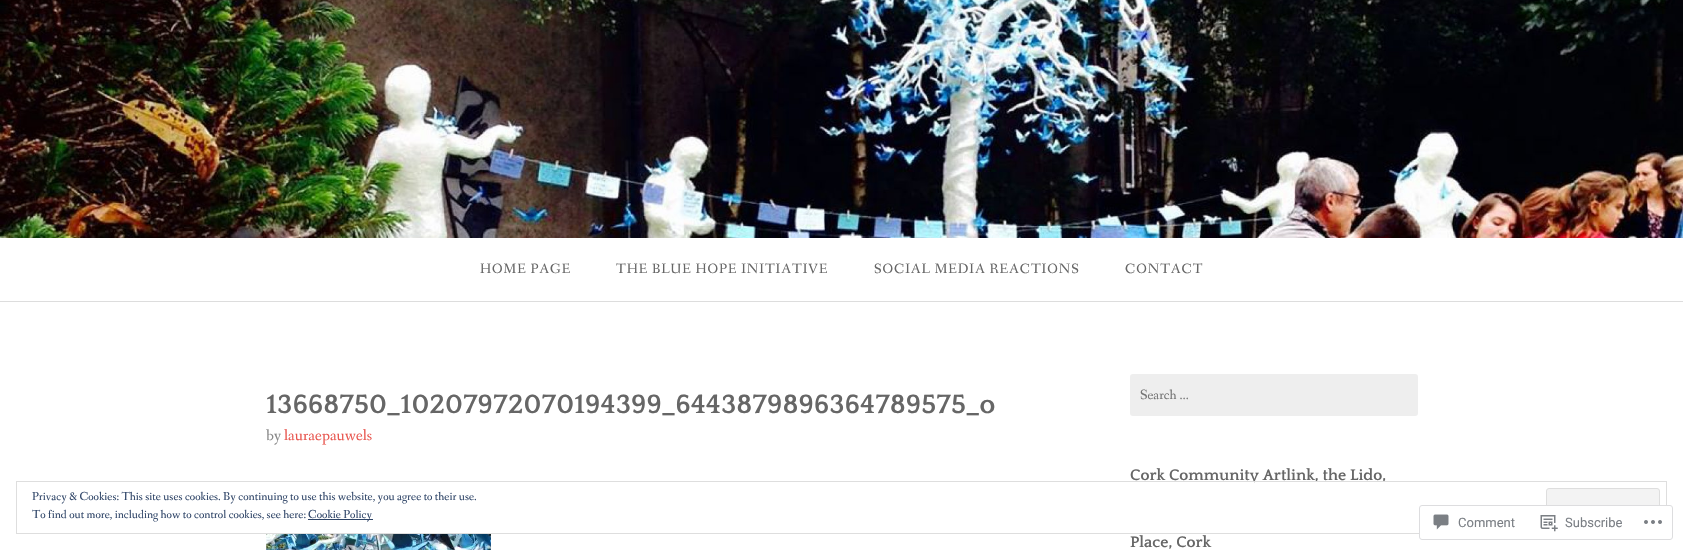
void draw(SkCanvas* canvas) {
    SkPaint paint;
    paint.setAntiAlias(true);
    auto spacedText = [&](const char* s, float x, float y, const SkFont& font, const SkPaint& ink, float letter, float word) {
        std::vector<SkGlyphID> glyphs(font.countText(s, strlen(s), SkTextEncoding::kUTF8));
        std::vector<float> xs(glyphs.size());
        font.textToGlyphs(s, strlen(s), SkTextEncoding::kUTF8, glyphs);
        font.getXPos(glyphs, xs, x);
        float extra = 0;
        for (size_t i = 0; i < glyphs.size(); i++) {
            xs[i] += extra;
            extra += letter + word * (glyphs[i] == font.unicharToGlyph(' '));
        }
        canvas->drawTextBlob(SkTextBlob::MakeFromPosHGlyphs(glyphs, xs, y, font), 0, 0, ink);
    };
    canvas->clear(0xFFFFFFFF);
    SkFont font1(fontMgr->matchFamilyStyle("Quattrocento", SkFontStyle::Bold()), 16);
    font1.setSubpixel(true);
    paint.setColor(0xFF666666);
    canvas->drawString("Cork Community Artlink, the Lido,", 1130, 480, font1, paint);
    paint.setColor(0xFFFFFFFF);
    canvas->drawRect(SkRect::MakeXYWH(1250, 482, 4, 3), paint);
    paint.setStyle(SkPaint::kStroke_Style);
    paint.setStrokeWidth(1);
    paint.setColor(0xFFDEDEDE);
    canvas->drawRect(SkRect::MakeXYWH(16.5f, 481.5f, 1650, 52), paint);
    SkFont font2(fontMgr->matchFamilyStyle("Fanwood Text", SkFontStyle::Normal()), 12);
    font2.setSubpixel(true);
    paint.setStyle(SkPaint::kFill_Style);
    paint.setColor(0xFF2E4467);
    canvas->drawString("Privacy & Cookies: This site uses cookies. By continuing to use this website, you agree to their use.", 32, 500, font2, paint);
    paint.setColor(0xFFF3F3F3);
    canvas->drawRoundRect(SkRect::MakeXYWH(1546.5f, 488.5f, 113, 38), 2.5f, 2.5f, paint);
    paint.setStyle(SkPaint::kStroke_Style);
    paint.setColor(0xFFDEDEDE);
    canvas->drawRoundRect(SkRect::MakeXYWH(1546.5f, 488.5f, 113, 38), 2.5f, 2.5f, paint);
    paint.setStyle(SkPaint::kFill_Style);
    paint.setColor(0xFF2E4467);
    canvas->drawString("To find out more, including how to control cookies, see here:", 32, 518, font2, paint);
    canvas->drawRect(SkRect::MakeXYWH(308, 519, 65, 1), paint);
    canvas->drawString("Cookie Policy", 308, 518, font2, paint);
    canvas->drawImageRect(SkImages::DeferredFromEncodedData(SkData::MakeFromFileName("img1.png")), SkRect::MakeXYWH(0, 0, 1683, 238), SkSamplingOptions());
    paint.setColor(0xFFDDDDDD);
    canvas->drawRect(SkRect::MakeXYWH(0, 301, 1683, 1), paint);
    SkFont font3(fontMgr->matchFamilyStyle("Fanwood Text", SkFontStyle::Normal()), 14);
    font3.setSubpixel(true);
    paint.setColor(0xFF666666);
    spacedText("HOME PAGE", 480, 273, font3, paint, 1, 0);
    spacedText("THE BLUE HOPE INITIATIVE", 616, 273, font3, paint, 1, 0);
    spacedText("SOCIAL MEDIA REACTIONS", 874, 273, font3, paint, 1, 0);
    spacedText("CONTACT", 1125, 273, font3, paint, 1, 0);
    SkFont font4(fontMgr->matchFamilyStyle("Quattrocento", SkFontStyle::Bold()), 28);
    font4.setSubpixel(true);
    canvas->drawString("13668750_10207972070194399_6443879896364789575_o", 266, 413, font4, paint);
    SkFont font5(fontMgr->matchFamilyStyle("Fanwood Text", SkFontStyle::Normal()), 16);
    font5.setSubpixel(true);
    paint.setColor(0xFF888888);
    canvas->drawString("by", 266, 440, font5, paint);
    paint.setColor(0xFFE8554E);
    canvas->drawString("lauraepauwels", 284, 440, font5, paint);
    canvas->drawImageRect(SkImages::DeferredFromEncodedData(SkData::MakeFromFileName("img2.png")), SkRect::MakeXYWH(266, 534, 225, 16), SkSamplingOptions());
    paint.setColor(0xFFEEEEEE);
    canvas->drawRoundRect(SkRect::MakeXYWH(1130, 374, 288, 42), 3, 3, paint);
    paint.setColor(0xFF757575);
    canvas->drawString("Search …", 1140, 399, font3, paint);
    paint.setColor(0xFF666666);
    canvas->drawString("Place, Cork", 1130, 547, font1, paint);
    paint.setColor(0xFAFFFFFF);
    canvas->drawRoundRect(SkRect::MakeXYWH(1419, 505, 254, 35), 3, 3, paint);
    paint.setStyle(SkPaint::kStroke_Style);
    paint.setColor(0xFADCDCDE);
    canvas->drawRoundRect(SkRect::MakeXYWH(1419.5f, 505.5f, 253, 34), 2.5f, 2.5f, paint);
    canvas->drawImageRect(SkImages::DeferredFromEncodedData(SkData::MakeFromFileName("img3.png")), SkRect::MakeXYWH(1433, 514, 16, 16), SkSamplingOptions());
    SkFont font6(fontMgr->matchFamilyStyle("Roboto", SkFontStyle::Normal()), 13);
    font6.setSubpixel(true);
    paint.setStyle(SkPaint::kFill_Style);
    paint.setColor(0xFF7B7F85);
    canvas->drawString("Comment", 1458, 527, font6, paint);
    canvas->drawImageRect(SkImages::DeferredFromEncodedData(SkData::MakeFromFileName("img4.png")), SkRect::MakeXYWH(1540, 515, 18, 17), SkSamplingOptions());
    canvas->drawString("Subscribe", 1565, 527, font6, paint);
    canvas->drawImageRect(SkImages::DeferredFromEncodedData(SkData::MakeFromFileName("img5.png")), SkRect::MakeXYWH(1644, 520, 18, 4), SkSamplingOptions());
}
